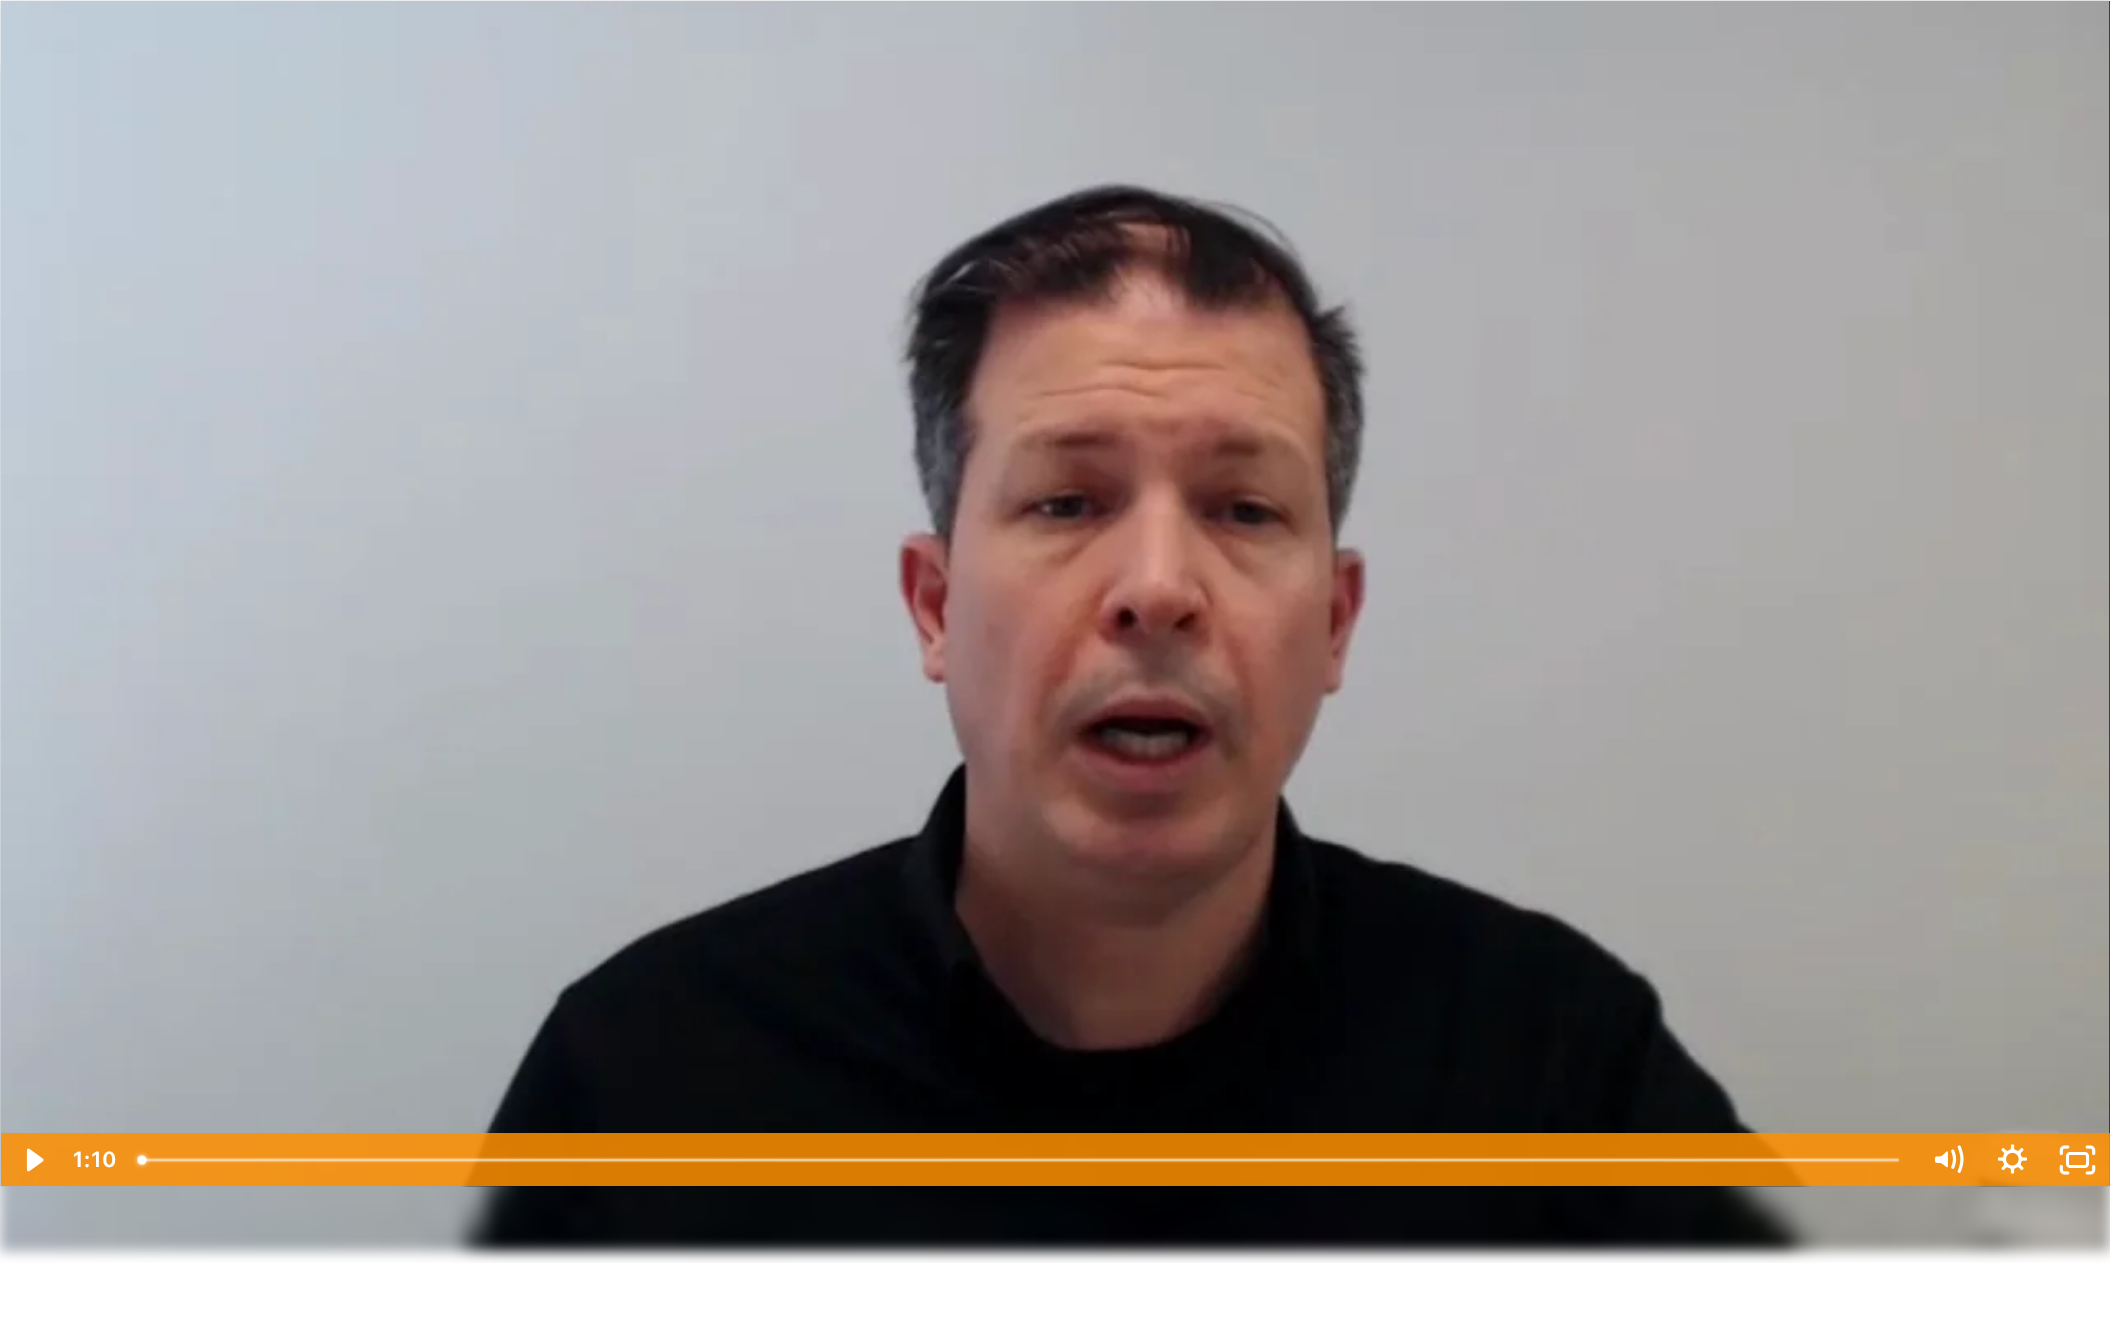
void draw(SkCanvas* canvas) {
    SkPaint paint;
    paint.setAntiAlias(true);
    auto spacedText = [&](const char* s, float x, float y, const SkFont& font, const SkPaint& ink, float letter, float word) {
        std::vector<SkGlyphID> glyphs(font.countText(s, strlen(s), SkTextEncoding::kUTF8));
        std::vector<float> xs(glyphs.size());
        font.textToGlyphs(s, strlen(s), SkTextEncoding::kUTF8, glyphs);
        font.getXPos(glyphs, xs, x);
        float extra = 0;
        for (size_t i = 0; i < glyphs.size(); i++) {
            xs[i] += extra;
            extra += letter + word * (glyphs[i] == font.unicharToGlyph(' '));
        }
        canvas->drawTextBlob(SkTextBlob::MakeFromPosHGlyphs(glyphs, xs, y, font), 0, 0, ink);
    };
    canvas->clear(0xFFFFFFFF);
    canvas->drawImageRect(SkImages::DeferredFromEncodedData(SkData::MakeFromFileName("img1.png")), SkRect::MakeXYWH(0, 58, 2110, 1205), SkSamplingOptions());
    canvas->drawImageRect(SkImages::DeferredFromEncodedData(SkData::MakeFromFileName("img2.png")), SkRect::MakeXYWH(0, 0, 2109, 1187), SkSamplingOptions());
    paint.setColor(0xFF000000);
    canvas->drawRect(SkRect::MakeXYWH(2109, 1, 1, 1185), paint);
    canvas->drawImageRect(SkImages::DeferredFromEncodedData(SkData::MakeFromFileName("img3.png")), SkRect::MakeXYWH(0, 0, 2110, 1187), SkSamplingOptions());
    paint.setColor(0xD9FF8F00);
    canvas->drawRect(SkRect::MakeXYWH(1, 1133, 2109, 53), paint);
    canvas->drawImageRect(SkImages::DeferredFromEncodedData(SkData::MakeFromFileName("img4.png")), SkRect::MakeXYWH(26, 1148, 18, 24), SkSamplingOptions());
    SkFont font1(fontMgr->matchFamilyStyle("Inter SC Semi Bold", SkFontStyle(600, SkFontStyle::kNormal_Width, SkFontStyle::kUpright_Slant)), 21);
    font1.setSubpixel(true);
    paint.setColor(0xFFFFFFFF);
    spacedText("1:10", 73, 1167, font1, paint, 1, 0);
    canvas->drawImageRect(SkImages::DeferredFromEncodedData(SkData::MakeFromFileName("img5.png")), SkRect::MakeXYWH(133, 1151, 1767, 18), SkSamplingOptions());
    canvas->drawImageRect(SkImages::DeferredFromEncodedData(SkData::MakeFromFileName("img6.png")), SkRect::MakeXYWH(1934, 1145, 30, 28), SkSamplingOptions());
    canvas->drawImageRect(SkImages::DeferredFromEncodedData(SkData::MakeFromFileName("img7.png")), SkRect::MakeXYWH(1997, 1144, 31, 30), SkSamplingOptions());
    canvas->drawImageRect(SkImages::DeferredFromEncodedData(SkData::MakeFromFileName("img8.png")), SkRect::MakeXYWH(2059, 1145, 37, 30), SkSamplingOptions());
}
